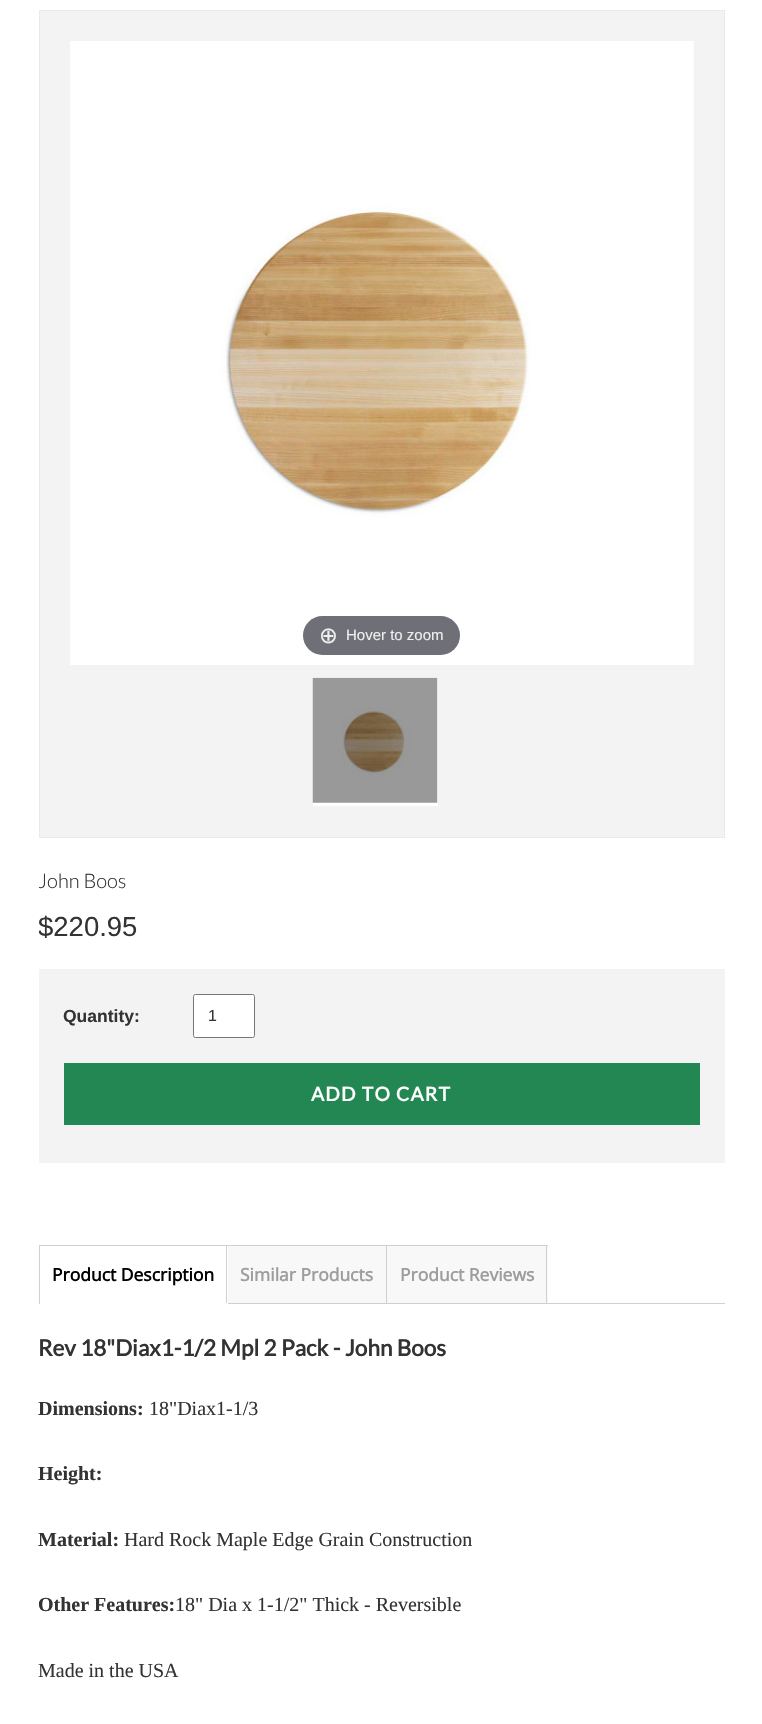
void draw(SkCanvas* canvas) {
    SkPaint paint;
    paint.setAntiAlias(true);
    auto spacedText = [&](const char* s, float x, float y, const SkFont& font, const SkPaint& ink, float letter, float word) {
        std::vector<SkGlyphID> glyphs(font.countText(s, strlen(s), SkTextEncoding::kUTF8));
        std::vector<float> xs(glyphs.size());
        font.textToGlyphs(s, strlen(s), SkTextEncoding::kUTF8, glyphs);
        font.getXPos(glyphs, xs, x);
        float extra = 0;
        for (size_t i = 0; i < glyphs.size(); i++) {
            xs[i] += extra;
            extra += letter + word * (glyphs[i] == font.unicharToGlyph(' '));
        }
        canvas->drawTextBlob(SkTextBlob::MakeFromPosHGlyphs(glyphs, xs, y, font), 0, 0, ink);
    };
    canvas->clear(0xFFFFFFFF);
    paint.setColor(0xFFF3F3F4);
    canvas->drawRect(SkRect::MakeXYWH(39.5f, 10.5f, 685, 827), paint);
    paint.setStyle(SkPaint::kStroke_Style);
    paint.setStrokeWidth(1);
    paint.setColor(0xFFEAEAEA);
    canvas->drawRect(SkRect::MakeXYWH(39.5f, 10.5f, 685, 827), paint);
    canvas->drawImageRect(SkImages::DeferredFromEncodedData(SkData::MakeFromFileName("img1.png")), SkRect::MakeXYWH(70, 41, 624, 624), SkSamplingOptions());
    paint.setStyle(SkPaint::kFill_Style);
    paint.setColor(0xFF6F7077);
    canvas->drawRoundRect(SkRect::MakeXYWH(303, 616, 157, 39), 19.5f, 19.5f, paint);
    SkFont font1(fontMgr->matchFamilyStyle("DejaVu Sans", SkFontStyle::Normal()), 22.5f);
    font1.setSubpixel(true);
    paint.setColor(0xFFEEEEEE);
    canvas->drawString("⊕", 319, 643, font1, paint);
    SkFont font2(fontMgr->matchFamilyStyle("Liberation Sans", SkFontStyle::Normal()), 15);
    font2.setSubpixel(true);
    canvas->drawString("Hover to zoom", 346, 640, font2, paint);
    paint.setColor(0xFFFFFFFF);
    canvas->drawRect(SkRect::MakeXYWH(313, 678, 125, 128), paint);
    canvas->drawImageRect(SkImages::DeferredFromEncodedData(SkData::MakeFromFileName("img2.png")), SkRect::MakeXYWH(312, 677, 126, 126), SkSamplingOptions());
    SkFont font3(fontMgr->matchFamilyStyle("Lato", SkFontStyle(300, SkFontStyle::kNormal_Width, SkFontStyle::kUpright_Slant)), 20);
    font3.setSubpixel(true);
    paint.setColor(0xFF333333);
    canvas->drawString("John Boos", 38, 888, font3, paint);
    canvas->save();
    canvas->clipRect(SkRect::MakeXYWH(39, 863, 686, 325));
    SkFont font4(fontMgr->matchFamilyStyle("Liberation Sans", SkFontStyle::Normal()), 27.5f);
    font4.setSubpixel(true);
    canvas->drawString("$220.95", 38, 936, font4, paint);
    canvas->restore();
    paint.setColor(0xFFF3F3F4);
    canvas->drawRect(SkRect::MakeXYWH(39, 969, 686, 194), paint);
    SkFont font5(fontMgr->matchFamilyStyle("Liberation Sans", SkFontStyle::Bold()), 17.5f);
    font5.setSubpixel(true);
    paint.setColor(0xFF333333);
    canvas->drawString("Quantity:", 63, 1022, font5, paint);
    paint.setColor(0xFFFFFFFF);
    canvas->drawRoundRect(SkRect::MakeXYWH(193.5f, 994.5f, 61, 43), 2, 2, paint);
    paint.setStyle(SkPaint::kStroke_Style);
    paint.setColor(0xFF767676);
    canvas->drawRoundRect(SkRect::MakeXYWH(193.5f, 994.5f, 61, 43), 2, 2, paint);
    SkFont font6(fontMgr->matchFamilyStyle("Liberation Sans", SkFontStyle::Normal()), 16);
    font6.setSubpixel(true);
    paint.setStyle(SkPaint::kFill_Style);
    paint.setColor(0xFF333333);
    canvas->drawString("1", 208, 1021, font6, paint);
    paint.setColor(0xFF238754);
    canvas->drawRect(SkRect::MakeXYWH(64, 1063, 636, 62), paint);
    SkFont font7(fontMgr->matchFamilyStyle("Lato", SkFontStyle::Bold()), 19.25f);
    font7.setSubpixel(true);
    paint.setColor(0xFFFFFFFF);
    spacedText("ADD TO CART", 311, 1101, font7, paint, 1.25f, 0);
    paint.setColor(0xFFD0D0D0);
    canvas->drawRect(SkRect::MakeXYWH(548, 1303, 177, 1), paint);
    canvas->drawRect(SkRect::MakeXYWH(39, 1245, 509, 1), paint);
    canvas->drawRect(SkRect::MakeXYWH(226, 1245, 1, 59), paint);
    paint.setColor(0xFFFFFFFF);
    canvas->drawRect(SkRect::MakeXYWH(226, 1303, 2, 1), paint);
    paint.setColor(0xFFD0D0D0);
    canvas->drawRect(SkRect::MakeXYWH(39, 1245, 1, 59), paint);
    SkFont font8(fontMgr->matchFamilyStyle("Open Sans", SkFontStyle::Bold()), 17.5f);
    font8.setSubpixel(true);
    paint.setColor(0xFF000000);
    canvas->drawString("Product Description", 52, 1281, font8, paint);
    paint.setColor(0xFFF8F8F8);
    canvas->drawRect(SkRect::MakeXYWH(228, 1246, 320, 57), paint);
    paint.setColor(0xFFD0D0D0);
    canvas->drawRect(SkRect::MakeXYWH(386, 1245, 1, 59), paint);
    canvas->drawRect(SkRect::MakeXYWH(228, 1303, 160, 1), paint);
    paint.setColor(0xFF9D9D9D);
    canvas->drawString("Similar Products", 240, 1281, font8, paint);
    paint.setColor(0xFFD0D0D0);
    canvas->drawRect(SkRect::MakeXYWH(546, 1245, 1, 59), paint);
    canvas->drawRect(SkRect::MakeXYWH(388, 1303, 160, 1), paint);
    paint.setColor(0xFF9D9D9D);
    canvas->drawString("Product Reviews", 400, 1281, font8, paint);
    SkFont font9(fontMgr->matchFamilyStyle("Lato", SkFontStyle::Bold()), 22.5f);
    font9.setSubpixel(true);
    paint.setColor(0xFF333333);
    canvas->drawString("Rev 18\"Diax1-1/2 Mpl 2 Pack - John Boos", 38, 1356, font9, paint);
    SkFont font10(fontMgr->matchFamilyStyle("Liberation Serif", SkFontStyle::Bold()), 20);
    font10.setSubpixel(true);
    canvas->drawString("Dimensions:", 38, 1415, font10, paint);
    SkFont font11(fontMgr->matchFamilyStyle("Liberation Serif", SkFontStyle::Normal()), 20);
    font11.setSubpixel(true);
    canvas->drawString("18\"Diax1-1/3", 149, 1415, font11, paint);
    canvas->drawString("Height:", 38, 1480, font10, paint);
    canvas->drawString("Material:", 38, 1546, font10, paint);
    canvas->drawString("Hard Rock Maple Edge Grain Construction", 124, 1546, font11, paint);
    canvas->drawString("Other Features:", 38, 1611, font10, paint);
    canvas->drawString("18\" Dia x 1-1/2\" Thick - Reversible", 175, 1611, font11, paint);
    canvas->drawString("Made in the USA", 38, 1677, font11, paint);
}
